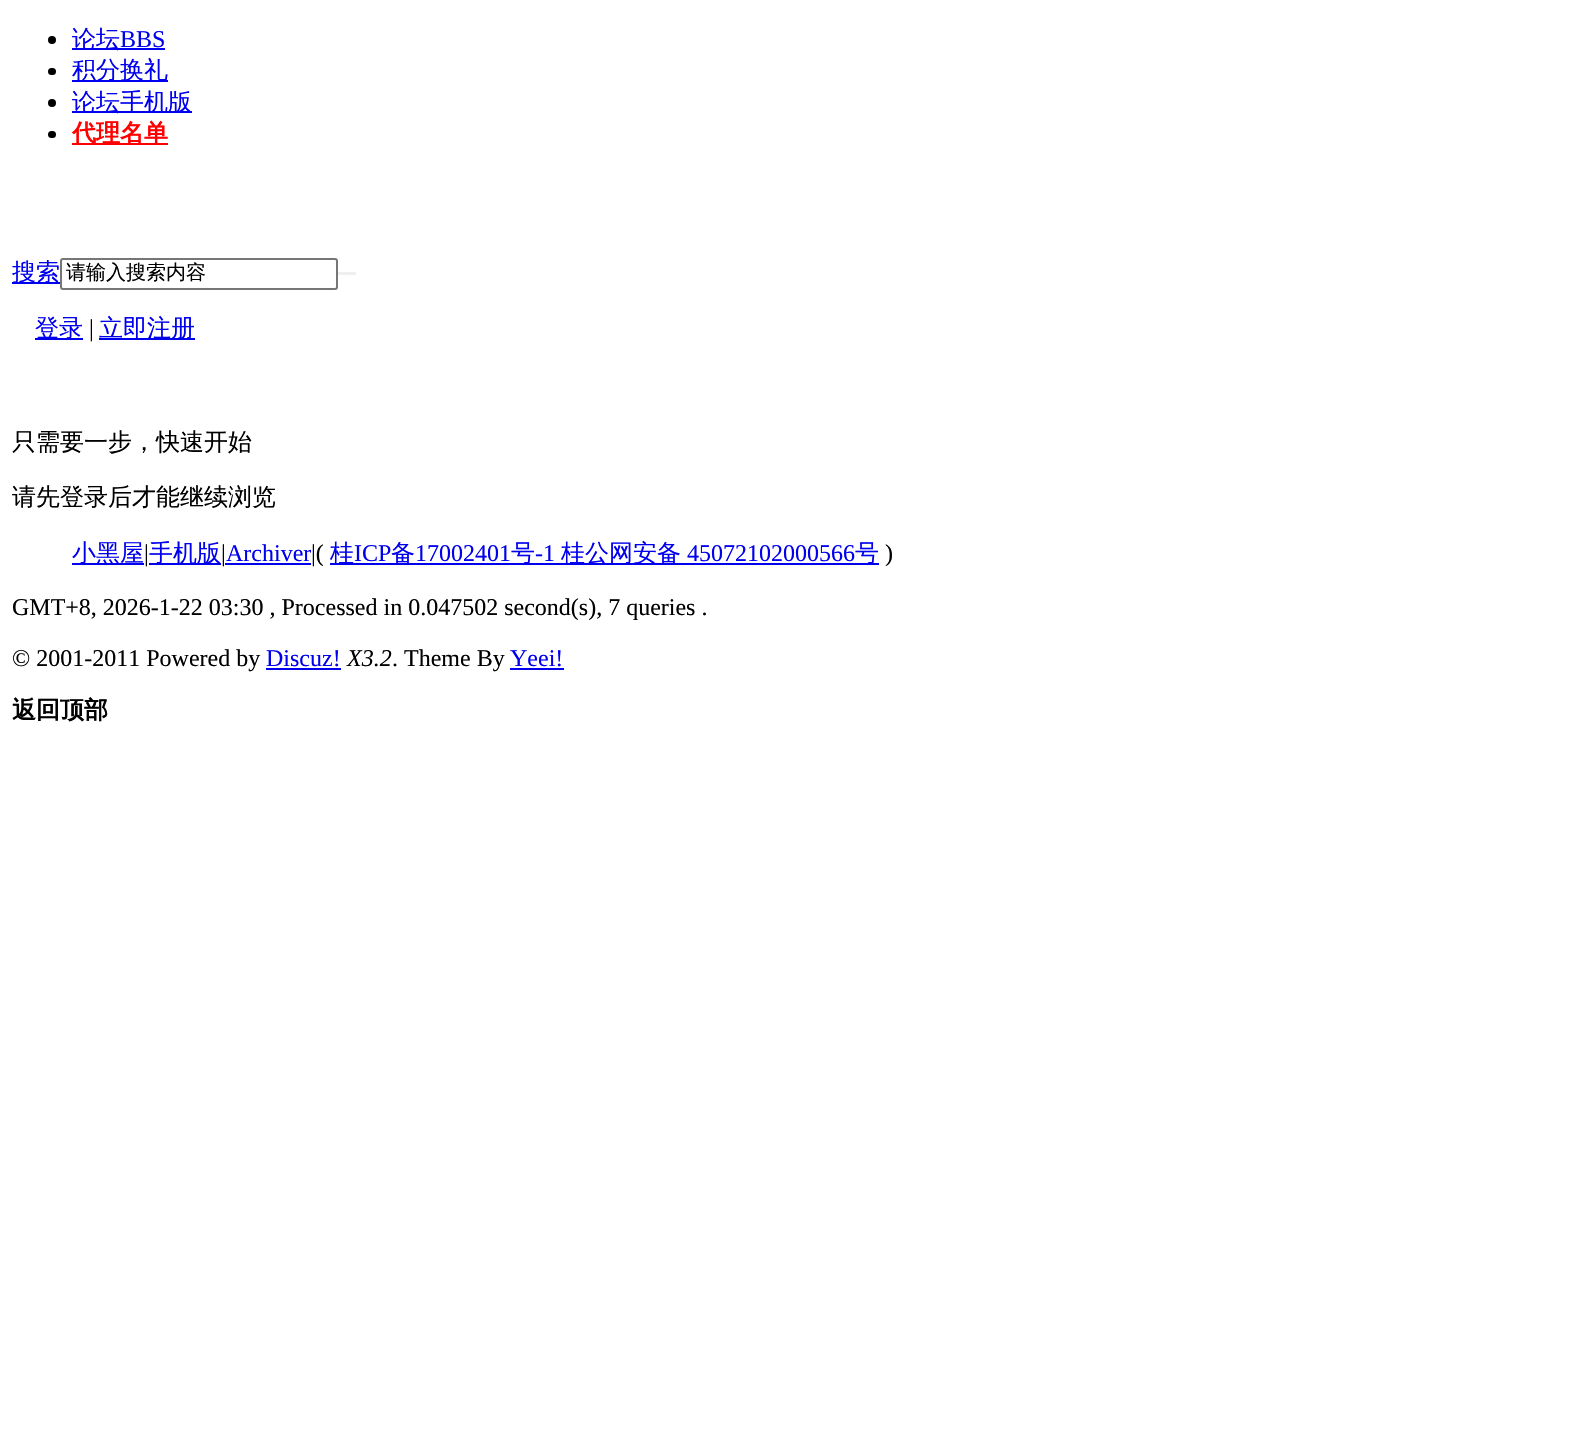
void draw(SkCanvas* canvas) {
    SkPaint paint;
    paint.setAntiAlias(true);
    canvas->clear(0xFFFFFFFF);
    paint.setColor(0xFF000000);
    canvas->drawCircle(52, 40, 4, paint);
    paint.setColor(0xFF0000EE);
    canvas->drawRect(SkRect::MakeXYWH(72, 48, 93, 2), paint);
    SkFont font1(fontMgr->matchFamilyStyle("WenQuanYi Zen Hei", SkFontStyle(500, SkFontStyle::kNormal_Width, SkFontStyle::kUpright_Slant)), 24);
    font1.setSubpixel(true);
    canvas->drawString("论坛", 72, 47, font1, paint);
    SkFont font2(fontMgr->matchFamilyStyle("Liberation Serif", SkFontStyle::Normal()), 24);
    font2.setSubpixel(true);
    canvas->drawString("BBS", 120, 47, font2, paint);
    paint.setColor(0xFF000000);
    canvas->drawRoundRect(SkRect::MakeXYWH(48, 68, 8, 7), 3.5f, 3.5f, paint);
    paint.setColor(0xFF0000EE);
    canvas->drawRect(SkRect::MakeXYWH(72, 80, 96, 2), paint);
    canvas->drawString("积分换礼", 72, 78, font1, paint);
    paint.setColor(0xFF000000);
    canvas->drawCircle(52, 103, 4, paint);
    paint.setColor(0xFF0000EE);
    canvas->drawRect(SkRect::MakeXYWH(72, 111, 120, 2), paint);
    canvas->drawString("论坛手机版", 72, 110, font1, paint);
    paint.setColor(0xFF000000);
    canvas->drawRoundRect(SkRect::MakeXYWH(48, 131, 8, 7), 3.5f, 3.5f, paint);
    paint.setColor(0xFFFF0000);
    canvas->drawRect(SkRect::MakeXYWH(72, 143, 96, 2), paint);
    SkFont font3(fontMgr->matchFamilyStyle("WenQuanYi Zen Hei", SkFontStyle::Bold()), 24);
    font3.setSubpixel(true);
    canvas->drawString("代理名单", 72, 141, font3, paint);
    paint.setColor(0xFF0000EE);
    canvas->drawRect(SkRect::MakeXYWH(12, 282, 48, 2), paint);
    canvas->drawString("搜索", 12, 280, font1, paint);
    paint.setStyle(SkPaint::kStroke_Style);
    paint.setStrokeWidth(2);
    paint.setColor(0xFF767676);
    canvas->drawRoundRect(SkRect::MakeXYWH(61, 259, 276, 30), 2, 2, paint);
    SkFont font4(fontMgr->matchFamilyStyle("WenQuanYi Zen Hei", SkFontStyle(500, SkFontStyle::kNormal_Width, SkFontStyle::kUpright_Slant)), 20);
    font4.setSubpixel(true);
    paint.setStyle(SkPaint::kFill_Style);
    paint.setColor(0xFF000000);
    canvas->drawString("请输入搜索内容", 66, 279, font4, paint);
    paint.setColor(0xFFEFEFEF);
    canvas->drawRect(SkRect::MakeXYWH(338, 272, 18, 3), paint);
    paint.setColor(0xFF0000EE);
    canvas->drawRect(SkRect::MakeXYWH(35, 338, 48, 2), paint);
    canvas->drawString("登录", 35, 336, font1, paint);
    paint.setColor(0xFF000000);
    canvas->drawString("|", 89, 336, font2, paint);
    paint.setColor(0xFF0000EE);
    canvas->drawRect(SkRect::MakeXYWH(99, 338, 96, 2), paint);
    canvas->drawString("立即注册", 99, 336, font1, paint);
    paint.setColor(0xFF000000);
    canvas->drawString("只需要一步，快速开始", 12, 450, font1, paint);
    canvas->drawString("请先登录后才能继续浏览", 12, 505, font1, paint);
    paint.setColor(0xFF0000EE);
    canvas->drawRect(SkRect::MakeXYWH(72, 563, 72, 2), paint);
    canvas->drawString("小黑屋", 72, 561, font1, paint);
    paint.setColor(0xFF000000);
    canvas->drawString("|", 144, 561, font2, paint);
    paint.setColor(0xFF0000EE);
    canvas->drawRect(SkRect::MakeXYWH(149, 563, 72, 2), paint);
    canvas->drawString("手机版", 149, 561, font1, paint);
    paint.setColor(0xFF000000);
    canvas->drawString("|", 221, 561, font2, paint);
    paint.setColor(0xFF0000EE);
    canvas->drawString("Archiver", 226, 561, font2, paint);
    canvas->drawRect(SkRect::MakeXYWH(225, 563, 86, 2), paint);
    paint.setColor(0xFF000000);
    canvas->drawString("|(", 311, 561, font2, paint);
    paint.setColor(0xFF0000EE);
    canvas->drawRect(SkRect::MakeXYWH(330, 563, 549, 2), paint);
    canvas->drawString("桂", 330, 561, font1, paint);
    canvas->drawString("ICP", 354, 561, font2, paint);
    canvas->drawString("备", 391, 561, font1, paint);
    canvas->drawString("17002401", 415, 561, font2, paint);
    canvas->drawString("号", 511, 561, font1, paint);
    canvas->drawString("-1", 535, 561, font2, paint);
    canvas->drawString("桂公网安备", 561, 561, font1, paint);
    canvas->drawString("45072102000566", 687, 561, font2, paint);
    canvas->drawString("号", 855, 561, font1, paint);
    paint.setColor(0xFF000000);
    canvas->drawString(")", 885, 561, font2, paint);
    canvas->drawString("GMT+8, 2026-1-22 03:30 , Processed in 0.047502 second(s), 7 queries .", 12, 615, font2, paint);
    canvas->drawString("© 2001-2011 Powered by", 12, 666, font2, paint);
    paint.setColor(0xFF0000EE);
    canvas->drawString("Discuz!", 266, 666, font2, paint);
    canvas->drawRect(SkRect::MakeXYWH(266, 668, 75, 2), paint);
    SkFont font5(fontMgr->matchFamilyStyle("Liberation Serif", SkFontStyle::Italic()), 24);
    font5.setSubpixel(true);
    paint.setColor(0xFF000000);
    canvas->drawString("X3.2", 347, 666, font5, paint);
    canvas->drawString(". Theme By", 392, 666, font2, paint);
    paint.setColor(0xFF0000EE);
    canvas->drawString("Yeei!", 510, 666, font2, paint);
    canvas->drawRect(SkRect::MakeXYWH(510, 668, 54, 2), paint);
    paint.setColor(0xFF000000);
    canvas->drawString("返回顶部", 12, 718, font3, paint);
}
